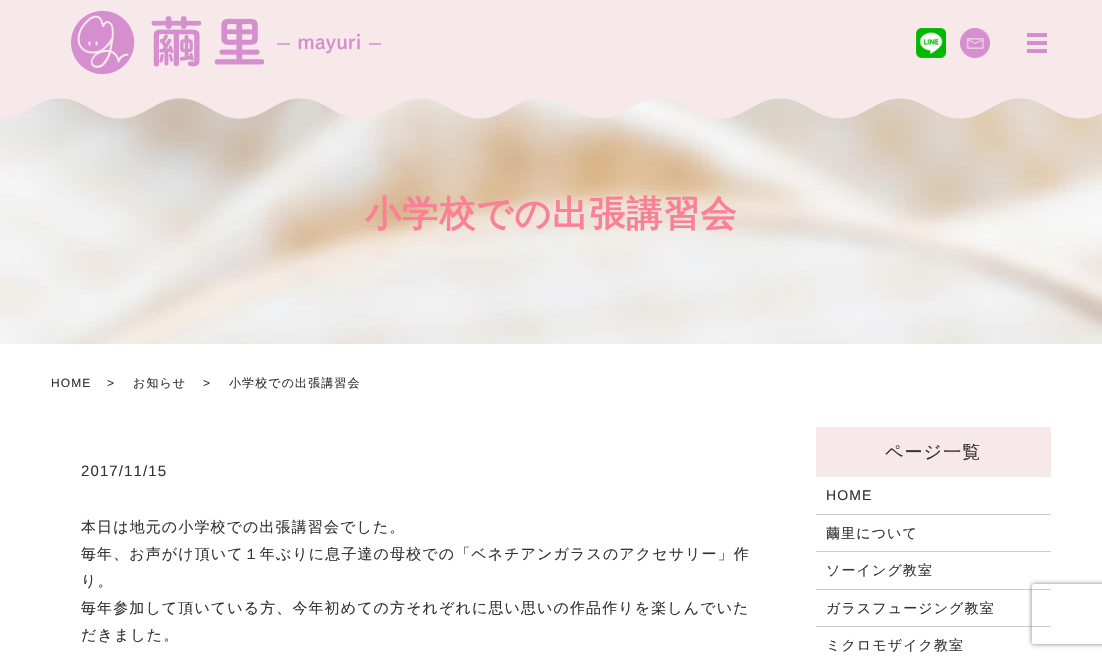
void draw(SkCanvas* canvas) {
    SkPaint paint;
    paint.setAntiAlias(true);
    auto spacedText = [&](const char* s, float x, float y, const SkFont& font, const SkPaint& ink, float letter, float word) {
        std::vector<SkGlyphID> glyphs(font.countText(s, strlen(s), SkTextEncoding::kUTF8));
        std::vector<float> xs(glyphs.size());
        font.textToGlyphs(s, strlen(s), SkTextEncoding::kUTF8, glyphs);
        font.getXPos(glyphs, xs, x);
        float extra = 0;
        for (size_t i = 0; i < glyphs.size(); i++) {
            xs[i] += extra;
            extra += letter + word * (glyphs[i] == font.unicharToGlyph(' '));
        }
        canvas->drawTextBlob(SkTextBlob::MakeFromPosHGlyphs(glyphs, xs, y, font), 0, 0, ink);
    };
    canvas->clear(0xFFFFFFFF);
    paint.setColor(0xFFF7E8EA);
    canvas->drawRect(SkRect::MakeXYWH(0, 0, 1102, 85), paint);
    canvas->drawImageRect(SkImages::DeferredFromEncodedData(SkData::MakeFromFileName("img1.png")), SkRect::MakeXYWH(71, 10, 310, 65), SkSamplingOptions());
    canvas->drawImageRect(SkImages::DeferredFromEncodedData(SkData::MakeFromFileName("img2.png")), SkRect::MakeXYWH(916, 28, 30, 30), SkSamplingOptions());
    canvas->drawImageRect(SkImages::DeferredFromEncodedData(SkData::MakeFromFileName("img3.png")), SkRect::MakeXYWH(960, 28, 30, 30), SkSamplingOptions());
    paint.setColor(0xFFD58ECE);
    canvas->drawRect(SkRect::MakeXYWH(1027, 33, 20, 4), paint);
    canvas->drawRect(SkRect::MakeXYWH(1027, 41, 20, 4), paint);
    canvas->drawRect(SkRect::MakeXYWH(1027, 49, 20, 4), paint);
    canvas->drawImageRect(SkImages::DeferredFromEncodedData(SkData::MakeFromFileName("img5.png")), SkRect::MakeXYWH(0, 98, 1102, 246), SkSamplingOptions());
    canvas->drawImageRect(SkImages::DeferredFromEncodedData(SkData::MakeFromFileName("img4.png")), SkRect::MakeXYWH(0, 85, 1102, 34), SkSamplingOptions());
    SkFont font1(fontMgr->matchFamilyStyle("WenQuanYi Zen Hei", SkFontStyle::Bold()), 36);
    font1.setSubpixel(true);
    paint.setColor(0xFFFA8096);
    spacedText("小学校での出張講習会", 365, 226, font1, paint, 1.1f, 0);
    SkFont font2(fontMgr->matchFamilyStyle("Liberation Sans", SkFontStyle::Normal()), 12);
    font2.setSubpixel(true);
    paint.setColor(0xFF333333);
    spacedText("HOME", 51, 387, font2, paint, 1.1f, 0);
    spacedText(">", 107, 387, font2, paint, 1.1f, 0);
    SkFont font3(fontMgr->matchFamilyStyle("WenQuanYi Zen Hei", SkFontStyle(500, SkFontStyle::kNormal_Width, SkFontStyle::kUpright_Slant)), 12);
    font3.setSubpixel(true);
    spacedText("お知らせ", 133, 387, font3, paint, 1.1f, 0);
    spacedText(">", 203, 387, font2, paint, 1.1f, 0);
    spacedText("小学校での出張講習会", 229, 387, font3, paint, 1.1f, 0);
    SkFont font4(fontMgr->matchFamilyStyle("Liberation Sans", SkFontStyle::Normal()), 15);
    font4.setSubpixel(true);
    spacedText("2017/11/15", 81, 476, font4, paint, 1.1f, 0);
    SkFont font5(fontMgr->matchFamilyStyle("WenQuanYi Zen Hei", SkFontStyle(500, SkFontStyle::kNormal_Width, SkFontStyle::kUpright_Slant)), 15);
    font5.setSubpixel(true);
    spacedText("本日は地元の小学校での出張講習会でした。", 81, 532, font5, paint, 1.1f, 0);
    spacedText("毎年、お声がけ頂いて１年ぶりに息子達の母校での「ベネチアンガラスのアクセサリー」作", 81, 559, font5, paint, 1.1f, 0);
    spacedText("り。", 81, 586, font5, paint, 1.1f, 0);
    spacedText("毎年参加して頂いている方、今年初めての方それぞれに思い思いの作品作りを楽しんでいた", 81, 613, font5, paint, 1.1f, 0);
    spacedText("だきました。", 81, 640, font5, paint, 1.1f, 0);
    paint.setColor(0xFFF7E8EA);
    canvas->drawRect(SkRect::MakeXYWH(816, 427, 235, 50), paint);
    SkFont font6(fontMgr->matchFamilyStyle("WenQuanYi Zen Hei", SkFontStyle(500, SkFontStyle::kNormal_Width, SkFontStyle::kUpright_Slant)), 18);
    font6.setSubpixel(true);
    paint.setColor(0xFF333333);
    spacedText("ページ一覧", 885, 458, font6, paint, 1.1f, 0);
    paint.setColor(0xFFCCCCCC);
    canvas->drawRect(SkRect::MakeXYWH(816, 514, 235, 1), paint);
    SkFont font7(fontMgr->matchFamilyStyle("Liberation Sans", SkFontStyle::Normal()), 14);
    font7.setSubpixel(true);
    paint.setColor(0xFF333333);
    spacedText("HOME", 826, 500, font7, paint, 1.1f, 0);
    paint.setColor(0xFFCCCCCC);
    canvas->drawRect(SkRect::MakeXYWH(816, 551, 235, 1), paint);
    SkFont font8(fontMgr->matchFamilyStyle("WenQuanYi Zen Hei", SkFontStyle(500, SkFontStyle::kNormal_Width, SkFontStyle::kUpright_Slant)), 14);
    font8.setSubpixel(true);
    paint.setColor(0xFF333333);
    spacedText("繭里について", 826, 538, font8, paint, 1.1f, 0);
    paint.setColor(0xFFCCCCCC);
    canvas->drawRect(SkRect::MakeXYWH(816, 589, 235, 1), paint);
    paint.setColor(0xFF333333);
    spacedText("ソーイング教室", 826, 575, font8, paint, 1.1f, 0);
    paint.setColor(0xFFCCCCCC);
    canvas->drawRect(SkRect::MakeXYWH(816, 626, 235, 1), paint);
    paint.setColor(0xFF333333);
    spacedText("ガラスフュージング教室", 826, 613, font8, paint, 1.1f, 0);
    spacedText("ミクロモザイク教室", 826, 650, font8, paint, 1.1f, 0);
    canvas->save();
    canvas->clipPath(SkPathBuilder(SkPathFillType::kEvenOdd).moveTo(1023, 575).lineTo(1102, 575).lineTo(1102, 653).lineTo(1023, 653).close().moveTo(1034, 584).lineTo(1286, 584).cubicTo(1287, 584, 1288, 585, 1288, 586).lineTo(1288, 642).cubicTo(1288, 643, 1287, 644, 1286, 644).lineTo(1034, 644).cubicTo(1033, 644, 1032, 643, 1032, 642).lineTo(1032, 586).cubicTo(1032, 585, 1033, 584, 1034, 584).close().detach(), true);
    paint.setColor(0xFF808080);
    paint.setMaskFilter(SkMaskFilter::MakeBlur(kNormal_SkBlurStyle, 2.5f));
    canvas->drawRoundRect(SkRect::MakeXYWH(1032, 584, 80, 60), 2, 2, paint);
    paint.setMaskFilter(nullptr);
    canvas->restore();
}
